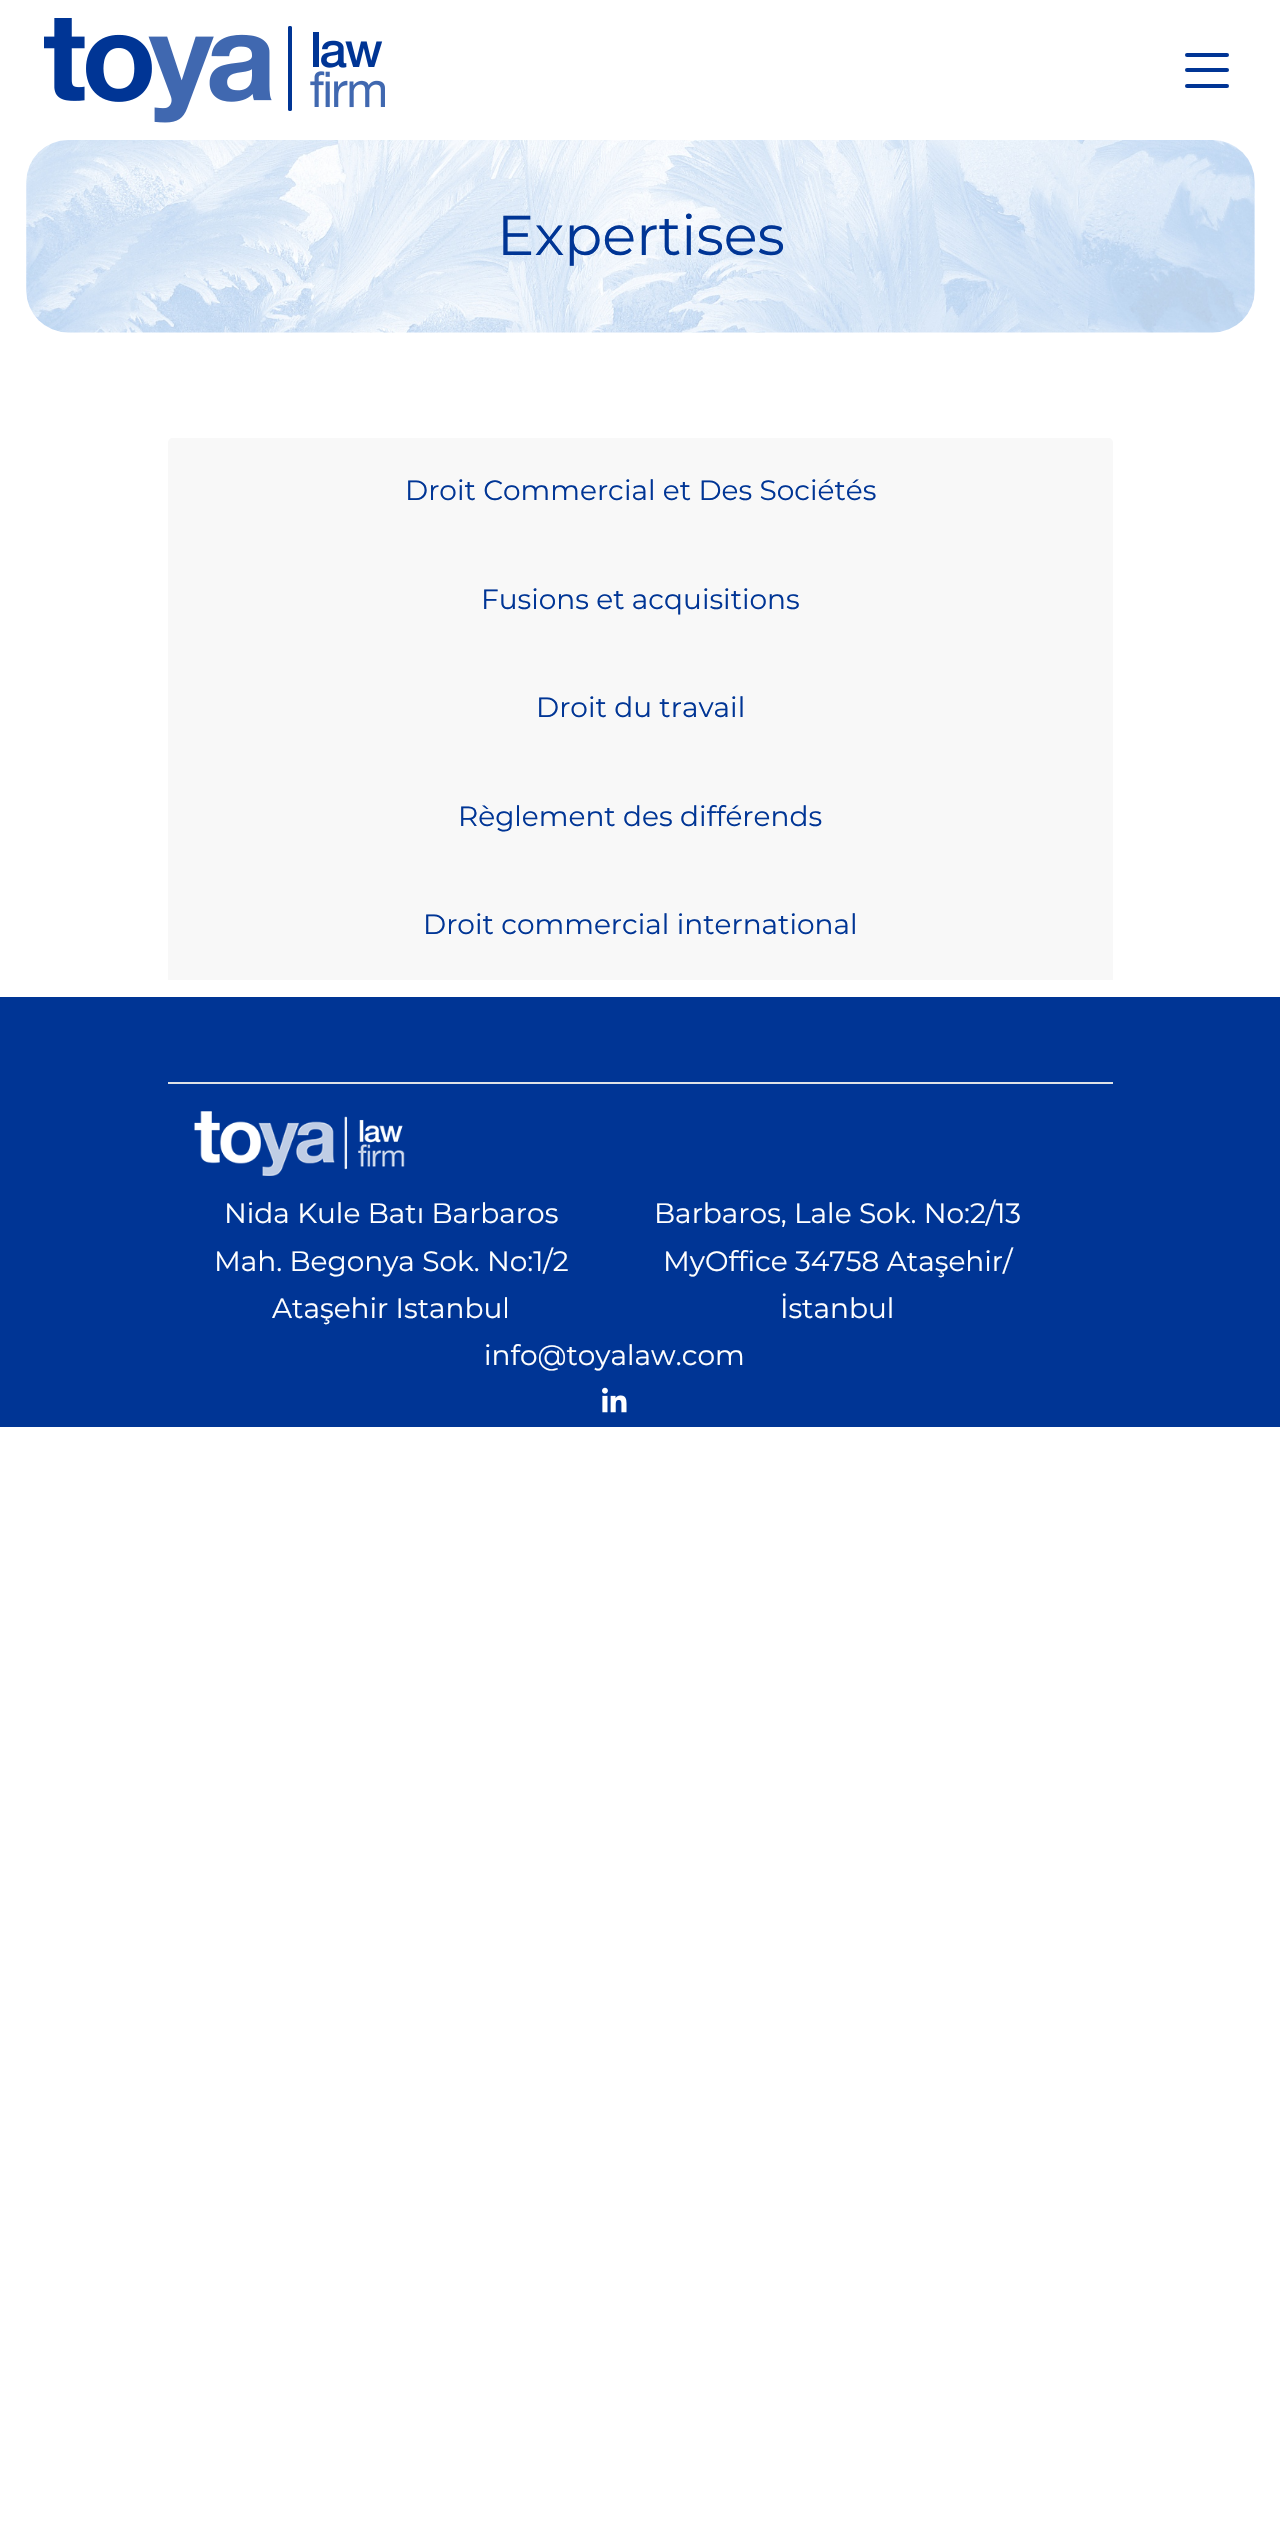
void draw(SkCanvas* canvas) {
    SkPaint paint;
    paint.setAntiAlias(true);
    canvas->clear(0xFFFFFFFF);
    canvas->drawImageRect(SkImages::DeferredFromEncodedData(SkData::MakeFromFileName("img1.png")), SkRect::MakeXYWH(44, 18, 341, 105), SkSamplingOptions());
    paint.setColor(0xFF003595);
    canvas->drawRoundRect(SkRect::MakeXYWH(1185, 53, 44, 4), 2, 2, paint);
    canvas->drawRoundRect(SkRect::MakeXYWH(1185, 68, 44, 4), 2, 2, paint);
    canvas->drawRoundRect(SkRect::MakeXYWH(1185, 84, 44, 4), 2, 2, paint);
    canvas->drawImageRect(SkImages::DeferredFromEncodedData(SkData::MakeFromFileName("img2.png")), SkRect::MakeXYWH(26, 140, 1229, 193), SkSamplingOptions());
    SkFont font1(fontMgr->matchFamilyStyle("Montserrat", SkFontStyle::Normal()), 56);
    font1.setSubpixel(true);
    canvas->drawString("Expertises", 497, 255, font1, paint);
    paint.setColor(0xFFF8F8F8);
    canvas->drawPath(SkPathBuilder().moveTo(173, 438).lineTo(1108, 438).cubicTo(1111, 438, 1113, 440, 1113, 443).lineTo(1113, 546).lineTo(168, 546).lineTo(168, 443).cubicTo(168, 440, 170, 438, 173, 438).close().detach(), paint);
    SkFont font2(fontMgr->matchFamilyStyle("Montserrat", SkFontStyle::Normal()), 28);
    font2.setSubpixel(true);
    paint.setColor(0xFF003595);
    canvas->drawString("Droit Commercial et Des Sociétés", 405, 500, font2, paint);
    paint.setColor(0xFFF8F8F8);
    canvas->drawRect(SkRect::MakeXYWH(168, 546, 945, 434), paint);
    paint.setColor(0xFF003595);
    canvas->drawString("Fusions et acquisitions", 481, 609, font2, paint);
    canvas->drawString("Droit du travail", 536, 717, font2, paint);
    canvas->drawString("Règlement des différends", 458, 826, font2, paint);
    canvas->drawString("Droit commercial international", 423, 934, font2, paint);
    canvas->drawRect(SkRect::MakeXYWH(0, 997, 1280, 430), paint);
    paint.setColor(0xFFDEE2E6);
    canvas->drawRect(SkRect::MakeXYWH(168, 1082, 945, 2), paint);
    canvas->drawImageRect(SkImages::DeferredFromEncodedData(SkData::MakeFromFileName("img3.png")), SkRect::MakeXYWH(194, 1111, 211, 65), SkSamplingOptions());
    paint.setColor(0xFFFFFFFF);
    canvas->drawString("Nida Kule Batı Barbaros", 224, 1223, font2, paint);
    canvas->drawString("Mah. Begonya Sok. No:1/2", 214, 1271, font2, paint);
    canvas->drawString("Ataşehir Istanbul", 272, 1318, font2, paint);
    canvas->drawString("Barbaros, Lale Sok. No:2/13", 654, 1223, font2, paint);
    canvas->drawString("MyOffice 34758 Ataşehir/", 663, 1271, font2, paint);
    canvas->drawString("İstanbul", 780, 1318, font2, paint);
    canvas->drawString("info@toyalaw.com", 484, 1365, font2, paint);
    canvas->drawImageRect(SkImages::DeferredFromEncodedData(SkData::MakeFromFileName("img4.png")), SkRect::MakeXYWH(602, 1387, 25, 26), SkSamplingOptions());
}
